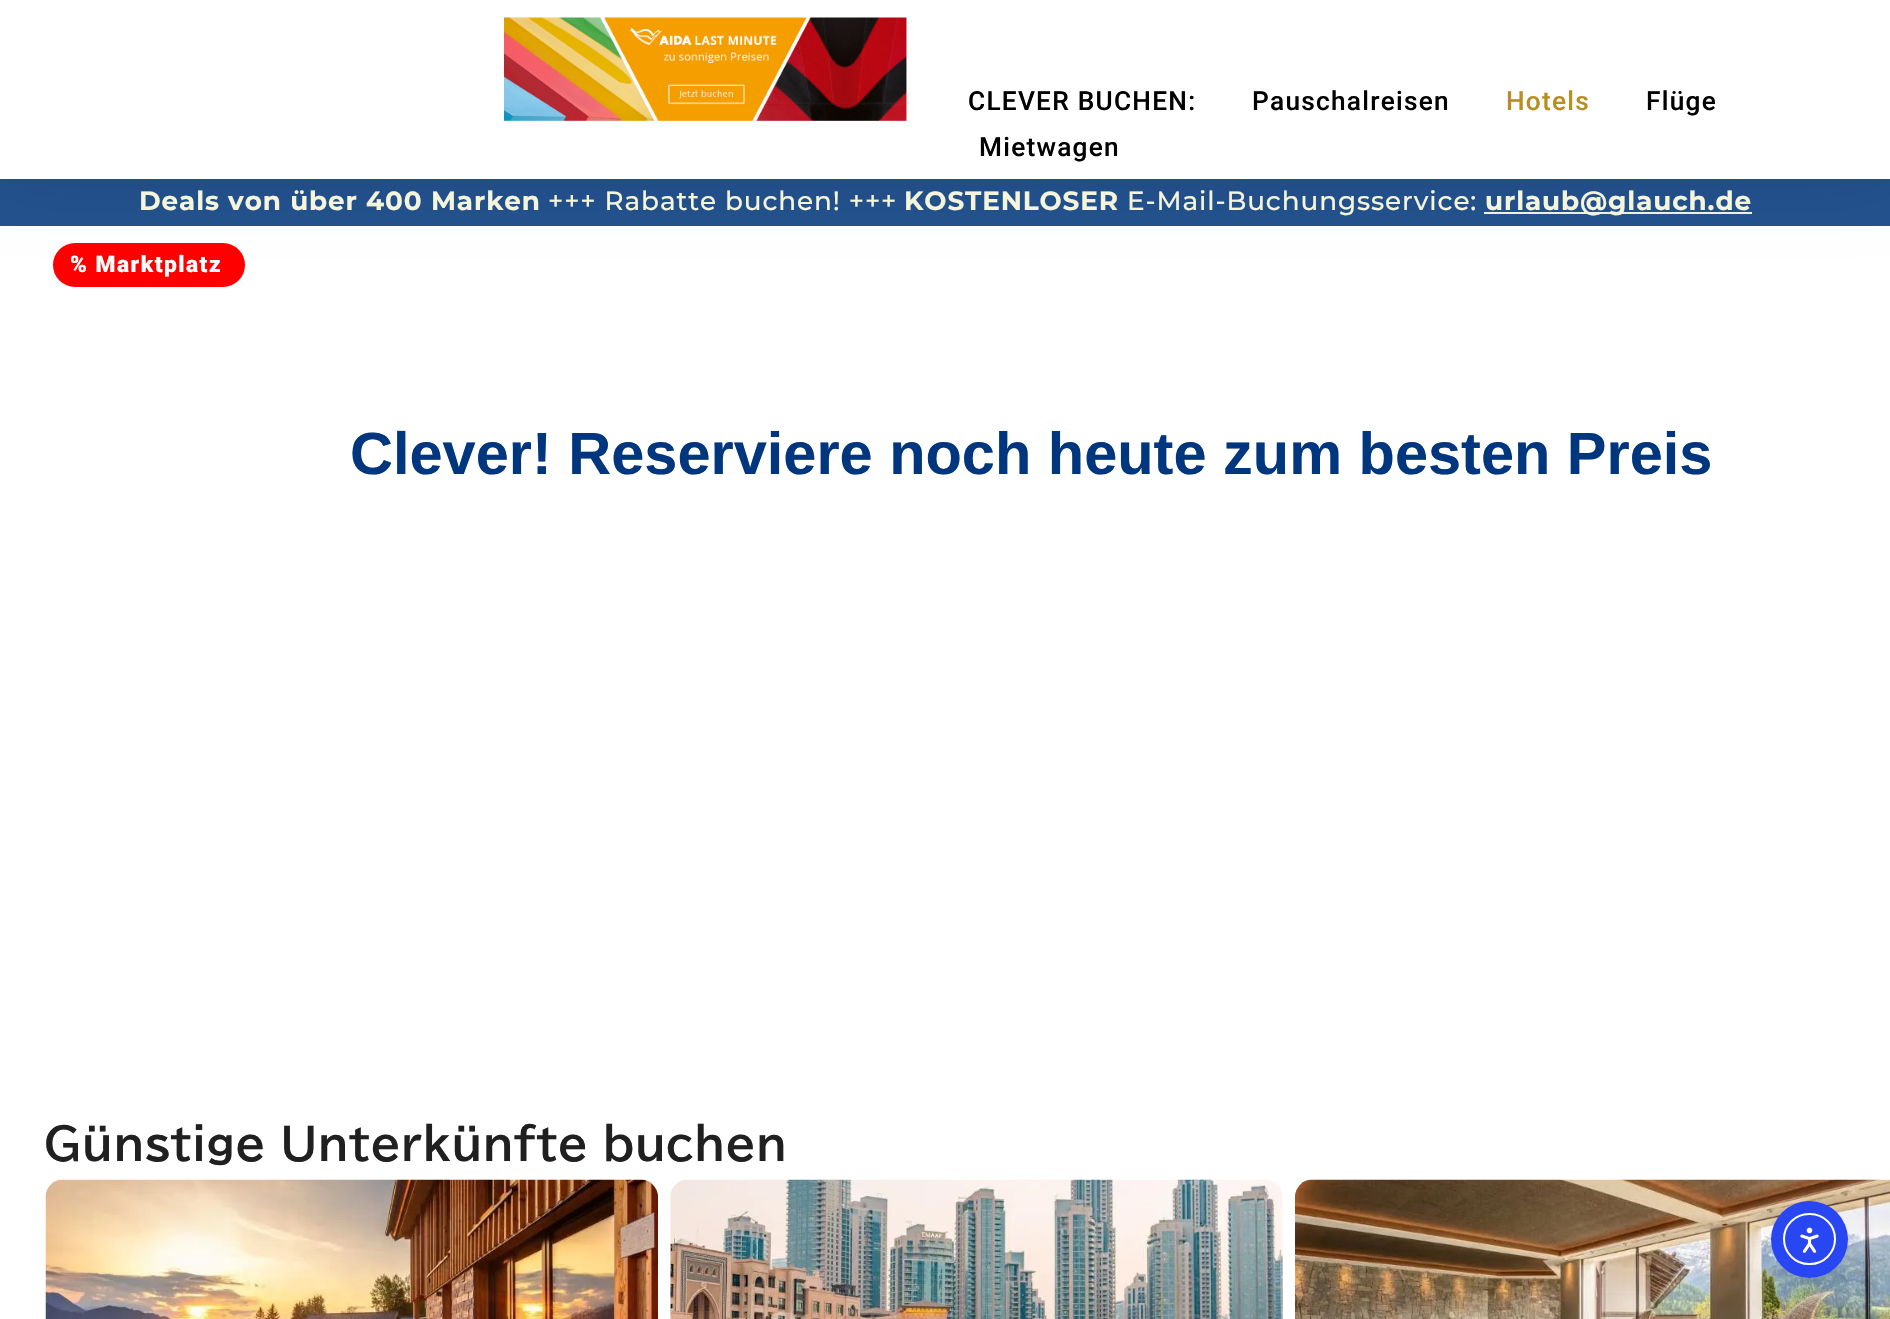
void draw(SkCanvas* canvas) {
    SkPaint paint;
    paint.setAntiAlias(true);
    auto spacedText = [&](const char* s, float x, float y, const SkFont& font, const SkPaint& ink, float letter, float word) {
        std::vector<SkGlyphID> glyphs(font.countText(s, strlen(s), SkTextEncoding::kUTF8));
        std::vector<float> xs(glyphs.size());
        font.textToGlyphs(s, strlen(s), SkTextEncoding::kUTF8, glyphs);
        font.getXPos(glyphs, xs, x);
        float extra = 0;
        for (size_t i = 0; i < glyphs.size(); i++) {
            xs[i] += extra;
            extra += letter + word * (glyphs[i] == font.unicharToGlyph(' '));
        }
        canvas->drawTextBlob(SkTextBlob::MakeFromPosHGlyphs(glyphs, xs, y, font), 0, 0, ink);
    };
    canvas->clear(0xFFFFFFFF);
    paint.setColor(0xFF23528E);
    canvas->drawRect(SkRect::MakeXYWH(0, 179, 1890, 47), paint);
    paint.setColor(0xFFF5F5DC);
    canvas->drawRect(SkRect::MakeXYWH(1484, 212, 268, 2), paint);
    paint.setColor(0xFFFF0000);
    canvas->drawRoundRect(SkRect::MakeXYWH(53, 243, 192, 44), 22, 22, paint);
    paint.setColor(0x1A000000);
    paint.setMaskFilter(SkMaskFilter::MakeBlur(kNormal_SkBlurStyle, 33));
    canvas->drawRect(SkRect::MakeXYWH(0, 0, 1890, 179), paint);
    paint.setMaskFilter(nullptr);
    paint.setColor(0xFFFFFFFF);
    canvas->drawRect(SkRect::MakeXYWH(0, 0, 1890, 179), paint);
    canvas->drawImageRect(SkImages::DeferredFromEncodedData(SkData::MakeFromFileName("img1.png")), SkRect::MakeXYWH(504, 17, 403, 104), SkSamplingOptions());
    SkFont font1(fontMgr->matchFamilyStyle("Roboto", SkFontStyle(500, SkFontStyle::kNormal_Width, SkFontStyle::kUpright_Slant)), 26.25f);
    font1.setSubpixel(true);
    paint.setColor(0xFF000000);
    spacedText("CLEVER BUCHEN:", 968, 110, font1, paint, 1.25f, 0);
    spacedText("Pauschalreisen", 1252, 110, font1, paint, 1.25f, 0);
    paint.setColor(0xFFB78E1F);
    spacedText("Hotels", 1506, 110, font1, paint, 1.25f, 0);
    paint.setColor(0xFF000000);
    spacedText("Flüge", 1646, 110, font1, paint, 1.25f, 0);
    spacedText("Mietwagen", 979, 156, font1, paint, 1.25f, 0);
    SkFont font2(fontMgr->matchFamilyStyle("Montserrat", SkFontStyle::Bold()), 26.25f);
    font2.setSubpixel(true);
    paint.setColor(0xFFF5F5DC);
    spacedText("Deals von über 400 Marken", 139, 210, font2, paint, 0.9f, 0);
    SkFont font3(fontMgr->matchFamilyStyle("Montserrat", SkFontStyle(500, SkFontStyle::kNormal_Width, SkFontStyle::kUpright_Slant)), 26.25f);
    font3.setSubpixel(true);
    spacedText("+++ Rabatte buchen! +++", 548, 210, font3, paint, 0.9f, 0);
    spacedText("KOSTENLOSER", 904, 210, font2, paint, 0.9f, 0);
    spacedText("E-Mail-Buchungsservice:", 1127, 210, font3, paint, 0.9f, 0);
    spacedText("urlaub@glauch.de", 1485, 210, font2, paint, 0.9f, 0);
    SkFont font4(fontMgr->matchFamilyStyle("Roboto", SkFontStyle(900, SkFontStyle::kNormal_Width, SkFontStyle::kUpright_Slant)), 22.75f);
    font4.setSubpixel(true);
    paint.setColor(0xFFFFFFFF);
    spacedText("% Marktplatz", 70, 272, font4, paint, 1.5f, 0);
    SkFont font5(fontMgr->matchFamilyStyle("Liberation Sans", SkFontStyle::Bold()), 59.5f);
    font5.setSubpixel(true);
    paint.setColor(0xFF00367E);
    canvas->drawString("Clever! Reserviere noch heute zum besten Preis", 350, 474, font5, paint);
    SkFont font6(fontMgr->matchFamilyStyle("BIZ UDPGothic", SkFontStyle::Bold()), 43.75f);
    font6.setSubpixel(true);
    paint.setColor(0xFF202020);
    canvas->drawString("Günstige Unterkünfte buchen", 44, 1160, font6, paint);
    canvas->drawImageRect(SkImages::DeferredFromEncodedData(SkData::MakeFromFileName("img2.png")), SkRect::MakeXYWH(45, 1179, 613, 140), SkSamplingOptions());
    canvas->drawImageRect(SkImages::DeferredFromEncodedData(SkData::MakeFromFileName("img3.png")), SkRect::MakeXYWH(670, 1179, 613, 140), SkSamplingOptions());
    canvas->drawImageRect(SkImages::DeferredFromEncodedData(SkData::MakeFromFileName("img4.png")), SkRect::MakeXYWH(1295, 1179, 595, 140), SkSamplingOptions());
    paint.setColor(0xFF2847F3);
    canvas->drawCircle(1809.5f, 1239.5f, 38.5f, paint);
    paint.setStyle(SkPaint::kStroke_Style);
    paint.setStrokeWidth(2);
    paint.setColor(0xFFFFFFFF);
    canvas->drawRoundRect(SkRect::MakeXYWH(1784, 1214, 51, 50), 25, 25, paint);
    canvas->drawImageRect(SkImages::DeferredFromEncodedData(SkData::MakeFromFileName("img5.png")), SkRect::MakeXYWH(1800, 1227, 19, 26), SkSamplingOptions());
}
